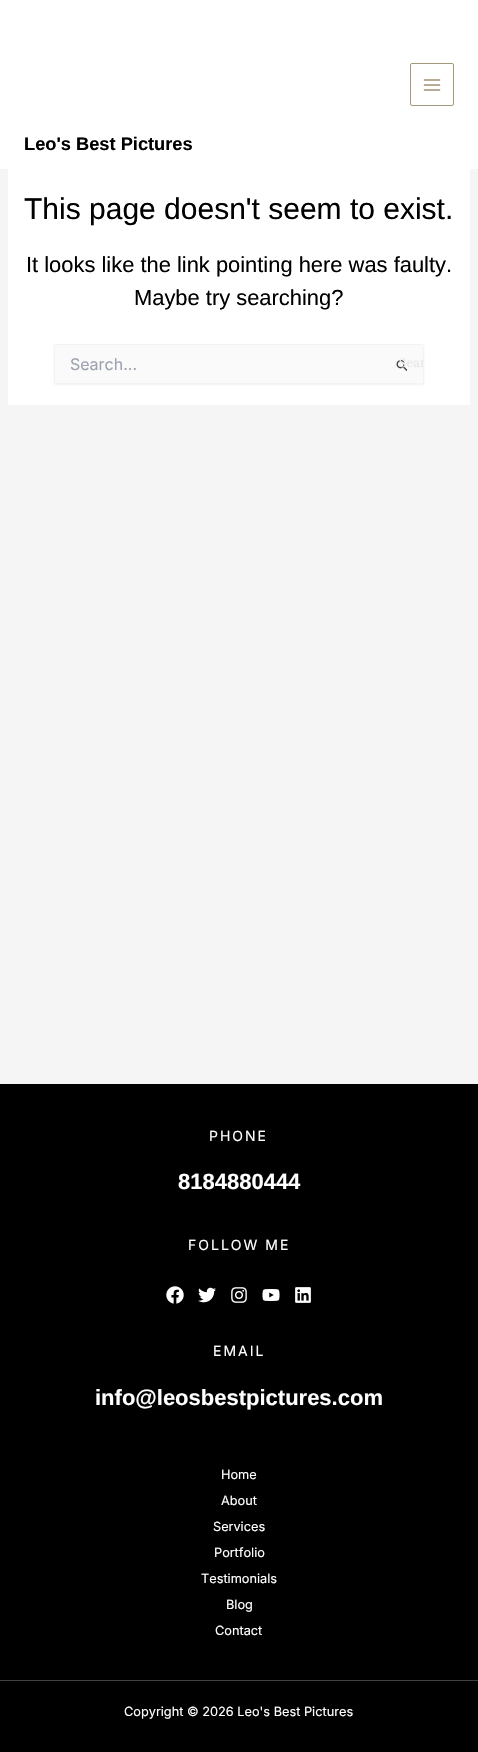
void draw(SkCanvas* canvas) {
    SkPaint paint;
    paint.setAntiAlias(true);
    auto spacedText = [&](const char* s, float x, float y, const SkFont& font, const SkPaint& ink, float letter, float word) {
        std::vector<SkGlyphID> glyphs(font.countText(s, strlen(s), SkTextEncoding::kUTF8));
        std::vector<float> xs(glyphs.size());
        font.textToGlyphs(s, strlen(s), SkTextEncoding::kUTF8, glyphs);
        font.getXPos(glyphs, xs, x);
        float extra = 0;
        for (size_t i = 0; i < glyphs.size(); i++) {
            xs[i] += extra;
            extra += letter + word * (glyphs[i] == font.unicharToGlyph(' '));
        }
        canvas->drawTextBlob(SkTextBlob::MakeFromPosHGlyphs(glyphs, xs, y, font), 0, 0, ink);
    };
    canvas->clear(0xFFF5F5F5);
    paint.setColor(0xFFFFFFFF);
    canvas->drawRect(SkRect::MakeXYWH(0, 0, 478, 169), paint);
    paint.setStyle(SkPaint::kStroke_Style);
    paint.setStrokeWidth(1);
    paint.setColor(0xFFA5967E);
    canvas->drawRoundRect(SkRect::MakeXYWH(410.5f, 63.5f, 43, 42), 1.5f, 1.5f, paint);
    canvas->drawImageRect(SkImages::DeferredFromEncodedData(SkData::MakeFromFileName("img1.png")), SkRect::MakeXYWH(423, 79, 18, 12), SkSamplingOptions());
    SkFont font1(fontMgr->matchFamilyStyle("Liberation Sans", SkFontStyle::Bold()), 18.25f);
    font1.setSubpixel(true);
    paint.setStyle(SkPaint::kFill_Style);
    paint.setColor(0xFF000000);
    canvas->drawString("Leo's Best Pictures", 24, 150, font1, paint);
    paint.setColor(0xFFFFFFFF);
    canvas->drawRect(SkRect::MakeXYWH(8, 169, 462, 236), paint);
    SkFont font2(fontMgr->matchFamilyStyle("Liberation Sans", SkFontStyle::Normal()), 30);
    font2.setSubpixel(true);
    paint.setColor(0xFF000000);
    canvas->drawString("This page doesn't seem to exist.", 24, 219, font2, paint);
    SkFont font3(fontMgr->matchFamilyStyle("Liberation Sans", SkFontStyle::Normal()), 21.9f);
    font3.setSubpixel(true);
    canvas->drawString("It looks like the link pointing here was faulty.", 26, 272, font3, paint);
    canvas->drawString("Maybe try searching?", 134, 305, font3, paint);
    paint.setColor(0x0D000000);
    paint.setMaskFilter(SkMaskFilter::MakeBlur(kNormal_SkBlurStyle, 1));
    canvas->drawRoundRect(SkRect::MakeXYWH(54, 345, 370, 40), 2, 2, paint);
    paint.setMaskFilter(nullptr);
    paint.setColor(0xFFFAFAFA);
    canvas->drawRoundRect(SkRect::MakeXYWH(54.5f, 344.5f, 369, 39), 1.5f, 1.5f, paint);
    paint.setStyle(SkPaint::kStroke_Style);
    paint.setColor(0xFFF5F3F0);
    canvas->drawRoundRect(SkRect::MakeXYWH(54.5f, 344.5f, 369, 39), 1.5f, 1.5f, paint);
    SkFont font4(fontMgr->matchFamilyStyle("Inter", SkFontStyle::Normal()), 16);
    font4.setSubpixel(true);
    paint.setStyle(SkPaint::kFill_Style);
    paint.setColor(0xFF9CA3AF);
    canvas->drawString("Search...", 70, 370, font4, paint);
    canvas->drawImageRect(SkImages::DeferredFromEncodedData(SkData::MakeFromFileName("img2.png")), SkRect::MakeXYWH(396, 360, 11, 11), SkSamplingOptions());
    canvas->save();
    canvas->clipPath(SkPathBuilder().moveTo(381, 344).lineTo(422, 344).cubicTo(423, 344, 424, 345, 424, 346).lineTo(424, 380).cubicTo(424, 381, 423, 382, 422, 382).lineTo(381, 382).cubicTo(380, 382, 379, 381, 379, 380).lineTo(379, 346).cubicTo(379, 345, 380, 344, 381, 344).close().detach(), true);
    SkFont font5(fontMgr->matchFamilyStyle("Inria Serif", SkFontStyle::Bold()), 12.75f);
    font5.setSubpixel(true);
    paint.setColor(0xFFE9E9E9);
    canvas->drawString("Sear", 399, 367, font5, paint);
    canvas->restore();
    paint.setColor(0xFF000000);
    canvas->drawRect(SkRect::MakeXYWH(0, 1084, 478, 596), paint);
    SkFont font6(fontMgr->matchFamilyStyle("Inter", SkFontStyle::Normal()), 14);
    font6.setSubpixel(true);
    paint.setColor(0xFFFFFFFF);
    spacedText("PHONE", 209, 1141, font6, paint, 2, 0);
    SkFont font7(fontMgr->matchFamilyStyle("Liberation Sans", SkFontStyle::Bold()), 22);
    font7.setSubpixel(true);
    canvas->drawString("8184880444", 178, 1189, font7, paint);
    spacedText("FOLLOW ME", 188, 1250, font6, paint, 2, 0);
    canvas->drawImageRect(SkImages::DeferredFromEncodedData(SkData::MakeFromFileName("img3.png")), SkRect::MakeXYWH(166, 1286, 18, 18), SkSamplingOptions());
    canvas->drawImageRect(SkImages::DeferredFromEncodedData(SkData::MakeFromFileName("img4.png")), SkRect::MakeXYWH(198, 1287, 18, 16), SkSamplingOptions());
    canvas->drawImageRect(SkImages::DeferredFromEncodedData(SkData::MakeFromFileName("img5.png")), SkRect::MakeXYWH(231, 1287, 16, 16), SkSamplingOptions());
    canvas->drawImageRect(SkImages::DeferredFromEncodedData(SkData::MakeFromFileName("img6.png")), SkRect::MakeXYWH(262, 1289, 18, 12), SkSamplingOptions());
    canvas->drawImageRect(SkImages::DeferredFromEncodedData(SkData::MakeFromFileName("img7.png")), SkRect::MakeXYWH(295, 1287, 16, 16), SkSamplingOptions());
    spacedText("EMAIL", 213, 1356, font6, paint, 2, 0);
    canvas->drawString("info@leosbestpictures.com", 95, 1405, font7, paint);
    SkFont font8(fontMgr->matchFamilyStyle("Inter", SkFontStyle::Normal()), 12.75f);
    font8.setSubpixel(true);
    canvas->drawString("Home", 221, 1479, font8, paint);
    canvas->drawString("About", 221, 1505, font8, paint);
    canvas->drawString("Services", 213, 1531, font8, paint);
    canvas->drawString("Portfolio", 214, 1557, font8, paint);
    canvas->drawString("Testimonials", 201, 1583, font8, paint);
    canvas->drawString("Blog", 226, 1609, font8, paint);
    canvas->drawString("Contact", 215, 1635, font8, paint);
    paint.setColor(0xFF000000);
    canvas->drawRect(SkRect::MakeXYWH(0, 1681, 478, 71), paint);
    paint.setColor(0xFF404040);
    canvas->drawRect(SkRect::MakeXYWH(0, 1680, 478, 1), paint);
    paint.setColor(0xFFFFFFFF);
    canvas->drawString("Copyright © 2026 Leo's Best Pictures", 124, 1716, font8, paint);
}
